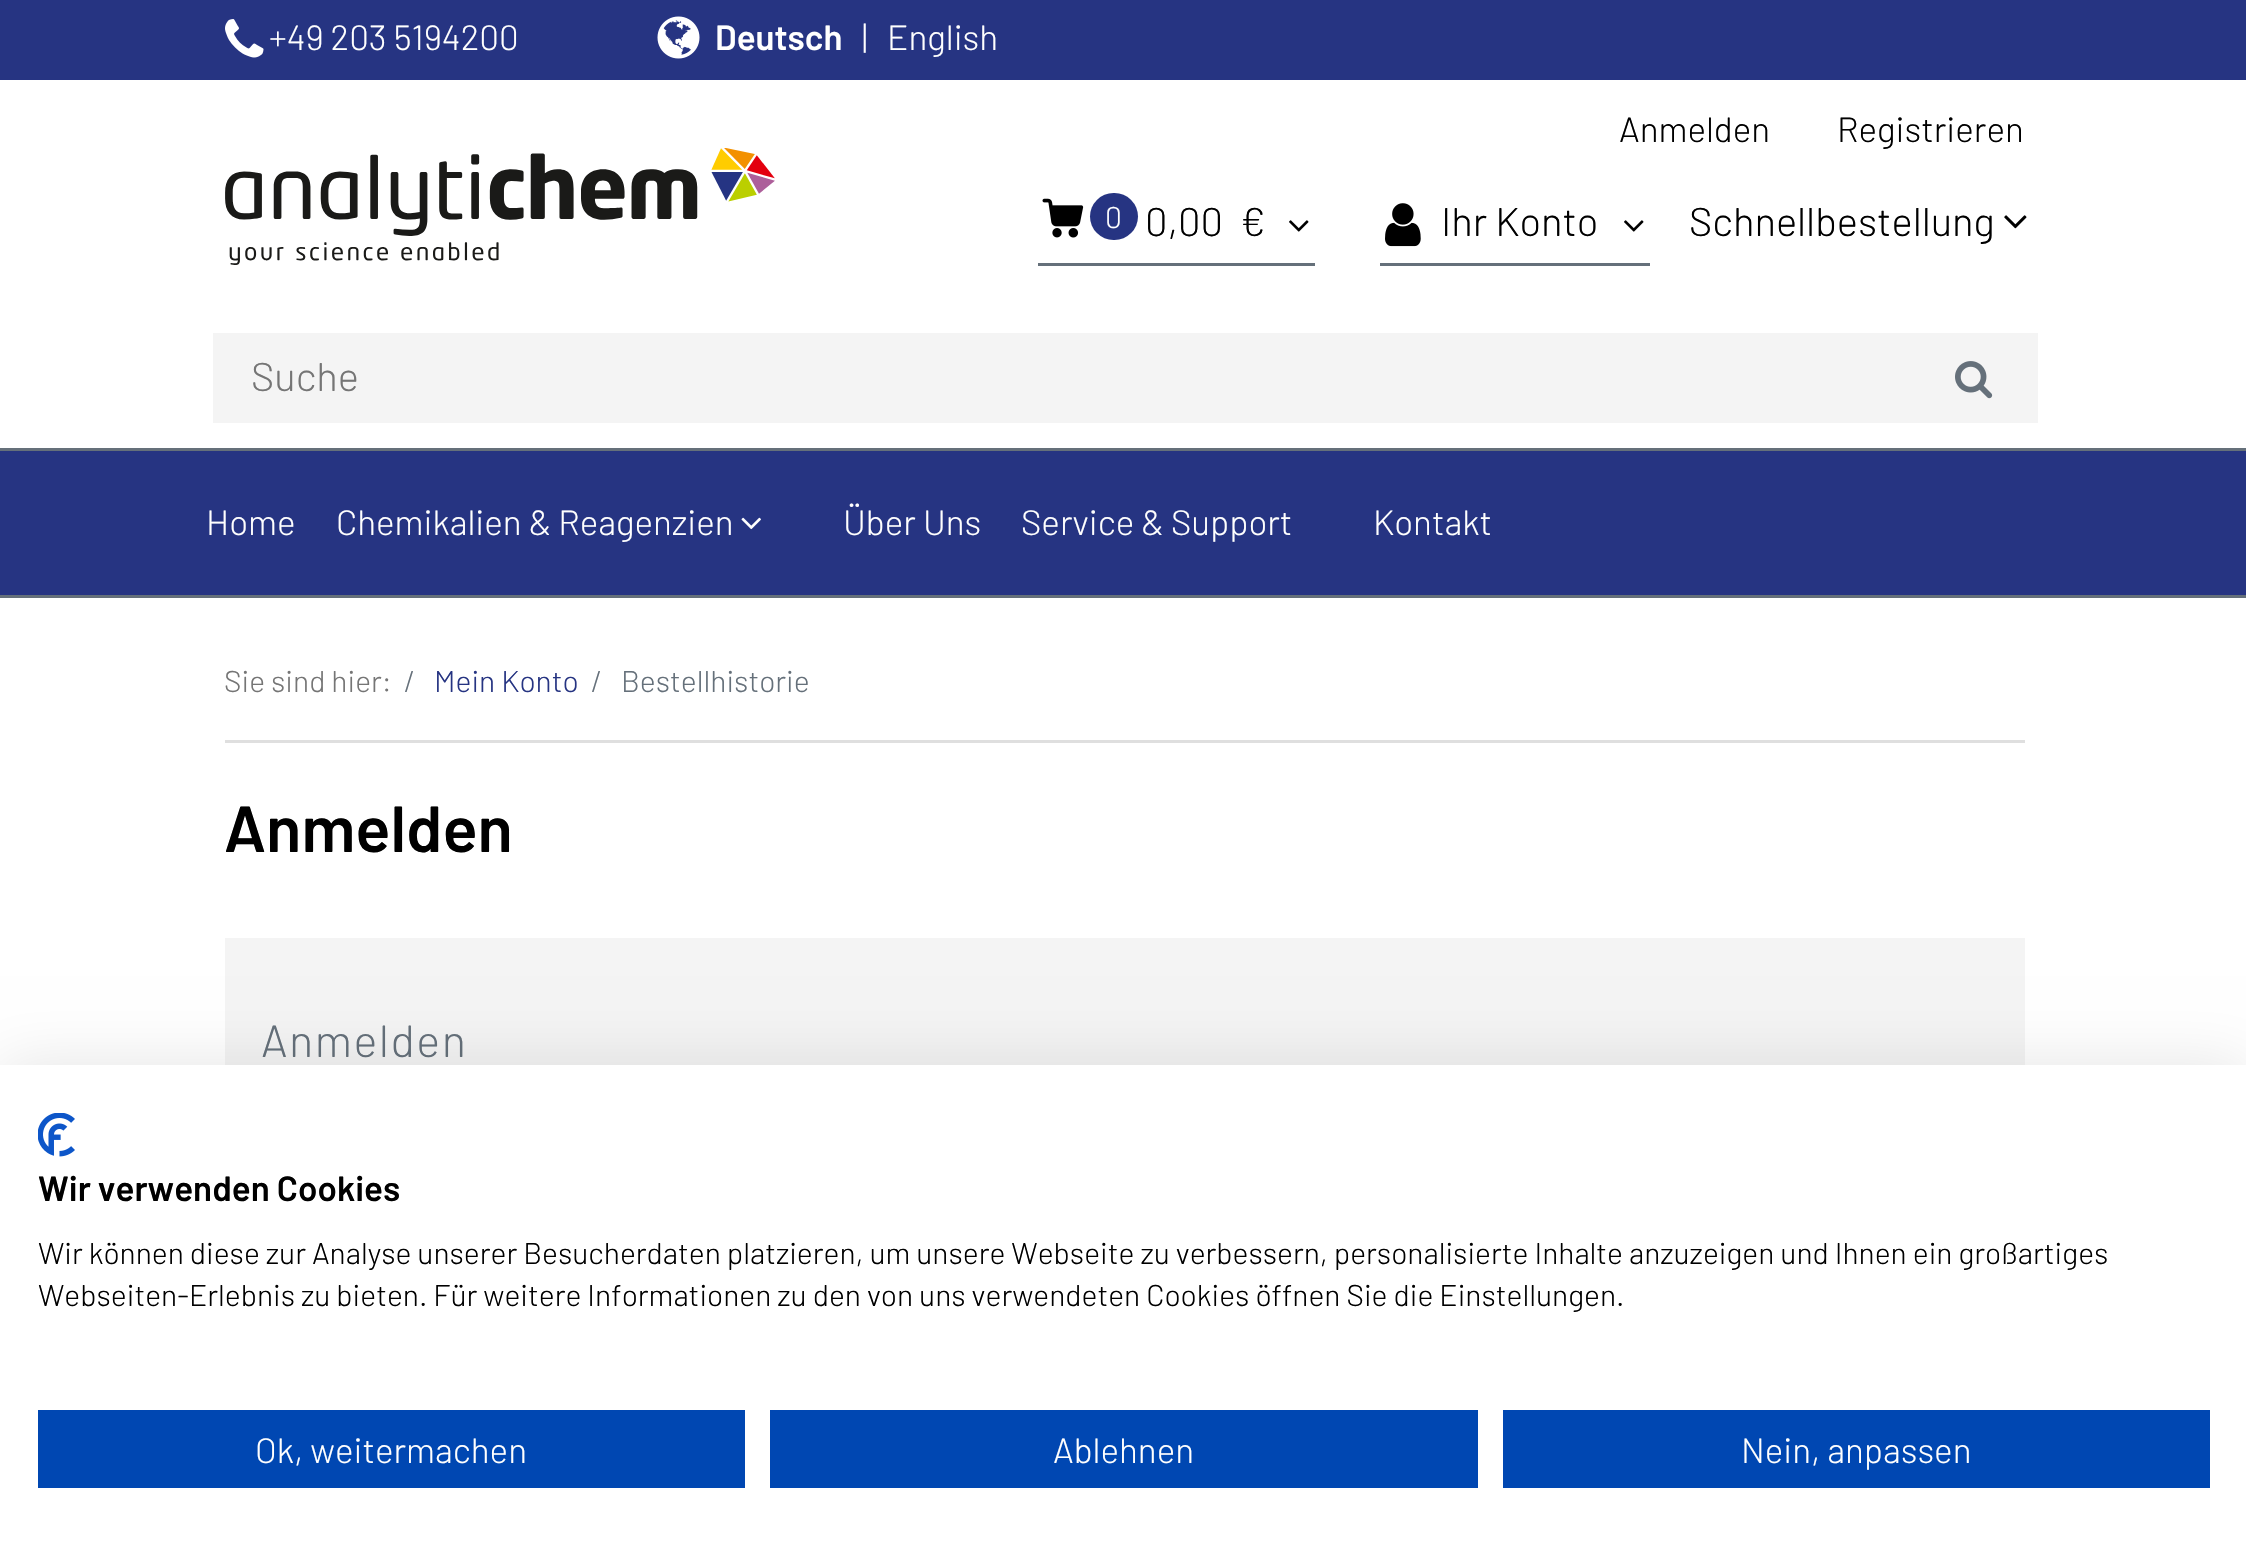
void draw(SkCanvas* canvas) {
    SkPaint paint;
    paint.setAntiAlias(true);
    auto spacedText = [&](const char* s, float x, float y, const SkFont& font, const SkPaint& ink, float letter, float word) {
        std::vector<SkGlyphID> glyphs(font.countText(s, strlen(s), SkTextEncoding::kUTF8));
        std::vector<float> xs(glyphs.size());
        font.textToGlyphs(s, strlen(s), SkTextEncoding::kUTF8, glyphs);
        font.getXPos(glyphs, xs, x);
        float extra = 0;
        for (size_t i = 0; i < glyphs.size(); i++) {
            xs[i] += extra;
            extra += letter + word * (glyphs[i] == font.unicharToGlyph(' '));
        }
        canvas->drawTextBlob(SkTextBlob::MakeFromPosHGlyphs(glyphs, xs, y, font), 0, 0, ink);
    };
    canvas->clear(0xFFFFFFFF);
    paint.setColor(0xFF263482);
    canvas->drawRect(SkRect::MakeXYWH(0, 0, 2246, 80), paint);
    canvas->drawImageRect(SkImages::DeferredFromEncodedData(SkData::MakeFromFileName("img1.png")), SkRect::MakeXYWH(225, 19, 39, 39), SkSamplingOptions());
    SkFont font1(fontMgr->matchFamilyStyle("Barlow", SkFontStyle(300, SkFontStyle::kNormal_Width, SkFontStyle::kUpright_Slant)), 35);
    font1.setSubpixel(true);
    paint.setColor(0xFFFFFFFF);
    canvas->drawString("+49 203 5194200", 269, 50, font1, paint);
    canvas->drawImageRect(SkImages::DeferredFromEncodedData(SkData::MakeFromFileName("img2.png")), SkRect::MakeXYWH(657, 16, 43, 43), SkSamplingOptions());
    SkFont font2(fontMgr->matchFamilyStyle("Barlow", SkFontStyle(600, SkFontStyle::kNormal_Width, SkFontStyle::kUpright_Slant)), 35);
    font2.setSubpixel(true);
    canvas->drawString("Deutsch", 715, 50, font2, paint);
    canvas->drawString("|", 862, 50, font1, paint);
    canvas->drawString("English", 887, 50, font1, paint);
    canvas->drawImageRect(SkImages::DeferredFromEncodedData(SkData::MakeFromFileName("img3.png")), SkRect::MakeXYWH(225, 148, 550, 117), SkSamplingOptions());
    paint.setColor(0xFF000000);
    canvas->drawString("Anmelden", 1619, 142, font1, paint);
    canvas->drawString("Registrieren", 1837, 142, font1, paint);
    canvas->drawImageRect(SkImages::DeferredFromEncodedData(SkData::MakeFromFileName("img4.png")), SkRect::MakeXYWH(1042, 198, 42, 40), SkSamplingOptions());
    paint.setColor(0xFF263482);
    canvas->drawRoundRect(SkRect::MakeXYWH(1090, 193, 48, 47), 23.5f, 23.5f, paint);
    SkFont font3(fontMgr->matchFamilyStyle("Barlow", SkFontStyle(300, SkFontStyle::kNormal_Width, SkFontStyle::kUpright_Slant)), 30);
    font3.setSubpixel(true);
    paint.setColor(0xFFFFFFFF);
    canvas->drawString("0", 1105, 228, font3, paint);
    SkFont font4(fontMgr->matchFamilyStyle("Barlow", SkFontStyle(300, SkFontStyle::kNormal_Width, SkFontStyle::kUpright_Slant)), 40);
    font4.setSubpixel(true);
    paint.setColor(0xFF000000);
    canvas->drawString("0,00", 1145, 236, font4, paint);
    canvas->drawString("€", 1240, 236, font4, paint);
    canvas->drawImageRect(SkImages::DeferredFromEncodedData(SkData::MakeFromFileName("img5.png")), SkRect::MakeXYWH(1289, 220, 20, 12), SkSamplingOptions());
    paint.setColor(0xFF65707A);
    canvas->drawRect(SkRect::MakeXYWH(1038, 263, 277, 3), paint);
    canvas->drawImageRect(SkImages::DeferredFromEncodedData(SkData::MakeFromFileName("img6.png")), SkRect::MakeXYWH(1385, 203, 36, 44), SkSamplingOptions());
    paint.setColor(0xFF000000);
    canvas->drawString("Ihr Konto", 1441, 236, font4, paint);
    canvas->drawImageRect(SkImages::DeferredFromEncodedData(SkData::MakeFromFileName("img5.png")), SkRect::MakeXYWH(1624, 220, 20, 12), SkSamplingOptions());
    paint.setColor(0xFF65707A);
    canvas->drawRect(SkRect::MakeXYWH(1380, 263, 270, 3), paint);
    paint.setColor(0xFF000000);
    canvas->drawString("Schnellbestellung", 1689, 236, font4, paint);
    canvas->drawImageRect(SkImages::DeferredFromEncodedData(SkData::MakeFromFileName("img7.png")), SkRect::MakeXYWH(2004, 215, 23, 14), SkSamplingOptions());
    paint.setColor(0xFFF4F4F4);
    canvas->drawRect(SkRect::MakeXYWH(213, 333, 1825, 90), paint);
    paint.setColor(0xFF757575);
    canvas->drawString("Suche", 251, 391, font4, paint);
    canvas->drawImageRect(SkImages::DeferredFromEncodedData(SkData::MakeFromFileName("img8.png")), SkRect::MakeXYWH(1955, 361, 38, 38), SkSamplingOptions());
    paint.setColor(0xFF263482);
    canvas->drawRect(SkRect::MakeXYWH(0, 451, 2246, 144), paint);
    paint.setColor(0xFF65707A);
    canvas->drawRect(SkRect::MakeXYWH(0, 448, 2246, 3), paint);
    canvas->drawRect(SkRect::MakeXYWH(0, 595, 2246, 3), paint);
    paint.setColor(0xFFFFFFFF);
    canvas->drawString("Home", 206, 535, font1, paint);
    canvas->drawString("Chemikalien & Reagenzien", 336, 535, font1, paint);
    canvas->drawImageRect(SkImages::DeferredFromEncodedData(SkData::MakeFromFileName("img9.png")), SkRect::MakeXYWH(741, 517, 20, 13), SkSamplingOptions());
    canvas->drawString("Über Uns", 843, 535, font1, paint);
    canvas->drawString("Service & Support", 1021, 535, font1, paint);
    canvas->drawString("Kontakt", 1373, 535, font1, paint);
    paint.setColor(0xFFDFDFDF);
    canvas->drawRect(SkRect::MakeXYWH(225, 740, 1800, 3), paint);
    paint.setColor(0xFF757575);
    canvas->drawString("Sie sind hier:", 224, 692, font3, paint);
    paint.setColor(0xFF65707A);
    canvas->drawString("/", 404, 692, font3, paint);
    paint.setColor(0xFF263482);
    canvas->drawString("Mein Konto", 434, 692, font3, paint);
    paint.setColor(0xFF65707A);
    canvas->drawString("/", 591, 692, font3, paint);
    canvas->drawString("Bestellhistorie", 621, 692, font3, paint);
    SkFont font5(fontMgr->matchFamilyStyle("Barlow", SkFontStyle(600, SkFontStyle::kNormal_Width, SkFontStyle::kUpright_Slant)), 65);
    font5.setSubpixel(true);
    paint.setColor(0xFF000000);
    canvas->drawString("Anmelden", 224, 852, font5, paint);
    paint.setColor(0xFFF4F4F4);
    canvas->drawRect(SkRect::MakeXYWH(225, 938, 1800, 127), paint);
    SkFont font6(fontMgr->matchFamilyStyle("Barlow", SkFontStyle(300, SkFontStyle::kNormal_Width, SkFontStyle::kUpright_Slant)), 45);
    font6.setSubpixel(true);
    paint.setColor(0xFF65707A);
    spacedText("Anmelden", 261, 1057, font6, paint, 1.5f, 0);
    paint.setColor(0x1A000000);
    paint.setMaskFilter(SkMaskFilter::MakeBlur(kNormal_SkBlurStyle, 30));
    canvas->drawRect(SkRect::MakeXYWH(0, 1065, 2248, 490), paint);
    paint.setMaskFilter(nullptr);
    paint.setColor(0xFFFFFFFF);
    canvas->drawRect(SkRect::MakeXYWH(0, 1065, 2246, 489), paint);
    canvas->drawImageRect(SkImages::DeferredFromEncodedData(SkData::MakeFromFileName("img10.png")), SkRect::MakeXYWH(38, 1113, 37, 44), SkSamplingOptions());
    paint.setColor(0xFF000000);
    canvas->drawString("Wir verwenden Cookies", 38, 1201, font2, paint);
    canvas->drawString("Wir können diese zur Analyse unserer Besucherdaten platzieren, um unsere Webseite zu verbessern, personalisierte Inhalte anzuzeigen und Ihnen ein großartiges", 38, 1264, font3, paint);
    canvas->drawString("Webseiten-Erlebnis zu bieten. Für weitere Informationen zu den von uns verwendeten Cookies öffnen Sie die Einstellungen.", 38, 1306, font3, paint);
    paint.setColor(0xFF0047B2);
    canvas->drawRect(SkRect::MakeXYWH(38, 1410, 707, 78), paint);
    paint.setColor(0xFFFFFFFF);
    canvas->drawString("Ok, weitermachen", 255, 1463, font1, paint);
    paint.setColor(0xFF0047B2);
    canvas->drawRect(SkRect::MakeXYWH(770, 1410, 708, 78), paint);
    paint.setColor(0xFFFFFFFF);
    canvas->drawString("Ablehnen", 1053, 1463, font1, paint);
    paint.setColor(0xFF0047B2);
    canvas->drawRect(SkRect::MakeXYWH(1503, 1410, 707, 78), paint);
    paint.setColor(0xFFFFFFFF);
    canvas->drawString("Nein, anpassen", 1741, 1463, font1, paint);
}
